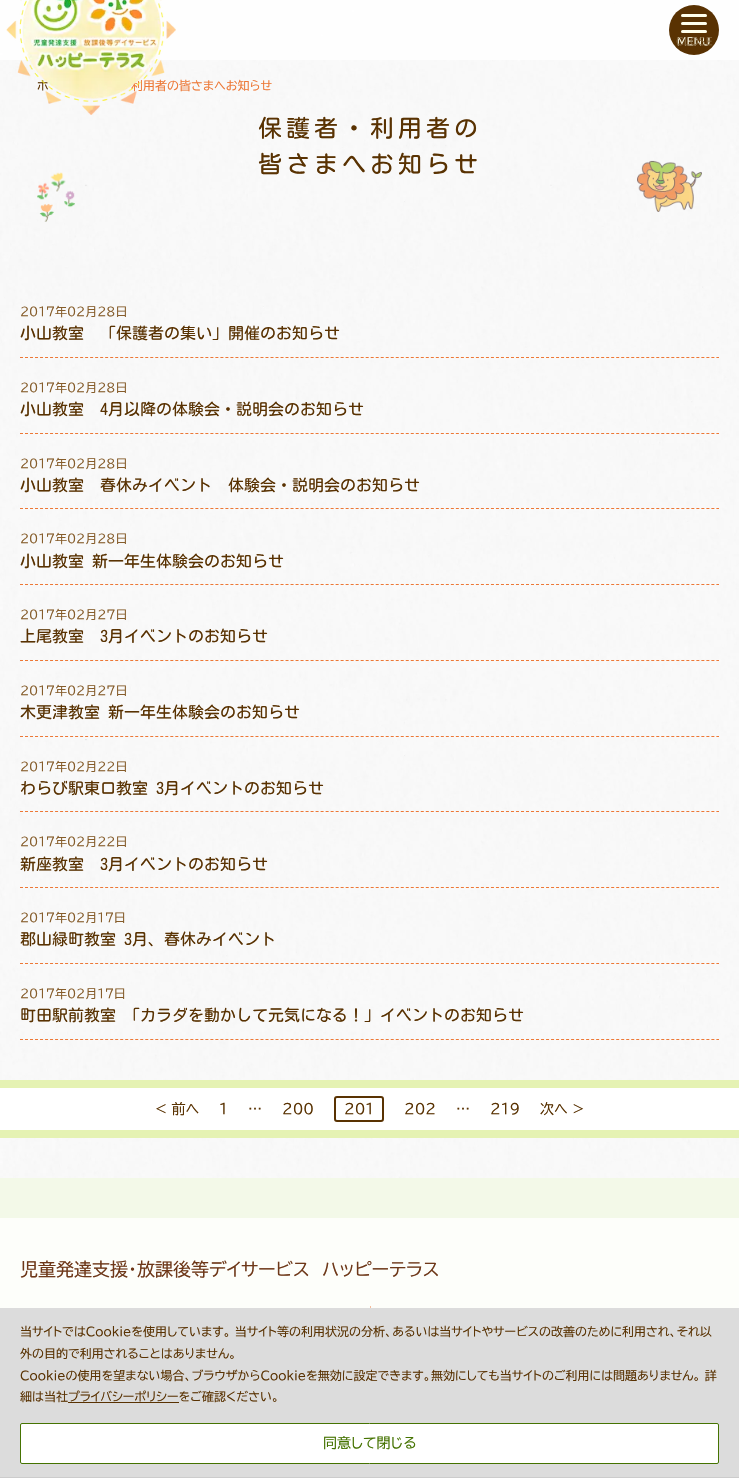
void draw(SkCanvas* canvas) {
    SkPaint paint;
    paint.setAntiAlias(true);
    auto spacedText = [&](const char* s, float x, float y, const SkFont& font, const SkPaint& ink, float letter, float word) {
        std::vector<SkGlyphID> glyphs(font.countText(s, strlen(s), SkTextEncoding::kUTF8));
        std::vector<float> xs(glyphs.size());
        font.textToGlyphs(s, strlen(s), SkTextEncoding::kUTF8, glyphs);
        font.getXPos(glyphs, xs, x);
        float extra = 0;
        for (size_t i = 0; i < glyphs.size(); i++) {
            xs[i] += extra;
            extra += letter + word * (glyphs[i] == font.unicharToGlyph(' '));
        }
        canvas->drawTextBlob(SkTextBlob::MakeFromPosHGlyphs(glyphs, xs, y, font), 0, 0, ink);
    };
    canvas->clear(0xFFFFFFFF);
    canvas->drawImageRect(SkImages::DeferredFromEncodedData(SkData::MakeFromFileName("img1.png")), SkRect::MakeXYWH(0, 0, 739, 1178), SkSamplingOptions());
    paint.setColor(0xCCFFFFFF);
    canvas->drawRect(SkRect::MakeXYWH(0, 0, 739, 60), paint);
    SkFont font1(fontMgr->matchFamilyStyle("BIZ UDPGothic", SkFontStyle::Normal()), 12);
    font1.setSubpixel(true);
    paint.setColor(0xFF593202);
    canvas->drawString("ホ", 37, 90, font1, paint);
    paint.setColor(0xFFED7836);
    canvas->drawString("利用者の皆さまへお知らせ", 131, 90, font1, paint);
    canvas->drawImageRect(SkImages::DeferredFromEncodedData(SkData::MakeFromFileName("img2.png")), SkRect::MakeXYWH(6, 0, 170, 115), SkSamplingOptions());
    paint.setColor(0xFF593202);
    canvas->drawCircle(694, 30, 25, paint);
    paint.setColor(0xFFFFFFEB);
    canvas->drawRoundRect(SkRect::MakeXYWH(681, 22, 26, 3), 1.5f, 1.5f, paint);
    canvas->drawRoundRect(SkRect::MakeXYWH(681, 14, 26, 3), 1.5f, 1.5f, paint);
    canvas->drawRoundRect(SkRect::MakeXYWH(681, 30, 26, 3), 1.5f, 1.5f, paint);
    SkFont font2(fontMgr->matchFamilyStyle("BIZ UDPGothic", SkFontStyle::Normal()), 10);
    font2.setSubpixel(true);
    canvas->drawString("MENU", 677, 45, font2, paint);
    paint.setColor(0xFF81643B);
    canvas->drawString("CLOSE", 676, 45, font2, paint);
    SkFont font3(fontMgr->matchFamilyStyle("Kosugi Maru", SkFontStyle::Normal()), 24);
    font3.setSubpixel(true);
    paint.setColor(0xFF593202);
    spacedText("保護者・利用者の", 258, 137, font3, paint, 4, 0);
    spacedText("皆さまへお知らせ", 258, 173, font3, paint, 4, 0);
    canvas->drawImageRect(SkImages::DeferredFromEncodedData(SkData::MakeFromFileName("img3.png")), SkRect::MakeXYWH(37, 172, 38, 50), SkSamplingOptions());
    canvas->drawImageRect(SkImages::DeferredFromEncodedData(SkData::MakeFromFileName("img4.png")), SkRect::MakeXYWH(637, 160, 65, 52), SkSamplingOptions());
    paint.setStyle(SkPaint::kStroke_Style);
    paint.setStrokeWidth(1);
    paint.setColor(0xFFED7836);
    paint.setPathEffect(SkDashPathEffect::Make({{3, 2.01f}}, 0));
    canvas->drawPath(SkPathBuilder().moveTo(20, 357.5f).lineTo(719, 357.5f).detach(), paint);
    paint.setPathEffect(nullptr);
    paint.setStyle(SkPaint::kFill_Style);
    paint.setColor(0xFF865D2B);
    canvas->drawString("2017年02月28日", 20, 316, font1, paint);
    SkFont font4(fontMgr->matchFamilyStyle("Kosugi Maru", SkFontStyle::Normal()), 16);
    font4.setSubpixel(true);
    paint.setColor(0xFF593202);
    canvas->drawString("小山教室　「保護者の集い」開催のお知らせ", 20, 339, font4, paint);
    paint.setStyle(SkPaint::kStroke_Style);
    paint.setColor(0xFFED7836);
    paint.setPathEffect(SkDashPathEffect::Make({{3, 2.01f}}, 0));
    canvas->drawPath(SkPathBuilder().moveTo(20, 433.5f).lineTo(719, 433.5f).detach(), paint);
    paint.setPathEffect(nullptr);
    paint.setStyle(SkPaint::kFill_Style);
    paint.setColor(0xFF865D2B);
    canvas->drawString("2017年02月28日", 20, 392, font1, paint);
    paint.setColor(0xFF593202);
    canvas->drawString("小山教室　4月以降の体験会・説明会のお知らせ", 20, 415, font4, paint);
    paint.setStyle(SkPaint::kStroke_Style);
    paint.setColor(0xFFED7836);
    paint.setPathEffect(SkDashPathEffect::Make({{3, 2.01f}}, 0));
    canvas->drawPath(SkPathBuilder().moveTo(20, 508.5f).lineTo(719, 508.5f).detach(), paint);
    paint.setPathEffect(nullptr);
    paint.setStyle(SkPaint::kFill_Style);
    paint.setColor(0xFF865D2B);
    canvas->drawString("2017年02月28日", 20, 468, font1, paint);
    paint.setColor(0xFF593202);
    canvas->drawString("小山教室　春休みイベント　体験会・説明会のお知らせ", 20, 491, font4, paint);
    paint.setStyle(SkPaint::kStroke_Style);
    paint.setColor(0xFFED7836);
    paint.setPathEffect(SkDashPathEffect::Make({{3, 2.01f}}, 0));
    canvas->drawPath(SkPathBuilder().moveTo(20, 584.5f).lineTo(719, 584.5f).detach(), paint);
    paint.setPathEffect(nullptr);
    paint.setStyle(SkPaint::kFill_Style);
    paint.setColor(0xFF865D2B);
    canvas->drawString("2017年02月28日", 20, 543, font1, paint);
    paint.setColor(0xFF593202);
    canvas->drawString("小山教室 新一年生体験会のお知らせ", 20, 567, font4, paint);
    paint.setStyle(SkPaint::kStroke_Style);
    paint.setColor(0xFFED7836);
    paint.setPathEffect(SkDashPathEffect::Make({{3, 2.01f}}, 0));
    canvas->drawPath(SkPathBuilder().moveTo(20, 660.5f).lineTo(719, 660.5f).detach(), paint);
    paint.setPathEffect(nullptr);
    paint.setStyle(SkPaint::kFill_Style);
    paint.setColor(0xFF865D2B);
    canvas->drawString("2017年02月27日", 20, 619, font1, paint);
    paint.setColor(0xFF593202);
    canvas->drawString("上尾教室　3月イベントのお知らせ", 20, 642, font4, paint);
    paint.setStyle(SkPaint::kStroke_Style);
    paint.setColor(0xFFED7836);
    paint.setPathEffect(SkDashPathEffect::Make({{3, 2.01f}}, 0));
    canvas->drawPath(SkPathBuilder().moveTo(20, 736.5f).lineTo(719, 736.5f).detach(), paint);
    paint.setPathEffect(nullptr);
    paint.setStyle(SkPaint::kFill_Style);
    paint.setColor(0xFF865D2B);
    canvas->drawString("2017年02月27日", 20, 695, font1, paint);
    paint.setColor(0xFF593202);
    canvas->drawString("木更津教室 新一年生体験会のお知らせ", 20, 718, font4, paint);
    paint.setStyle(SkPaint::kStroke_Style);
    paint.setColor(0xFFED7836);
    paint.setPathEffect(SkDashPathEffect::Make({{3, 2.01f}}, 0));
    canvas->drawPath(SkPathBuilder().moveTo(20, 811.5f).lineTo(719, 811.5f).detach(), paint);
    paint.setPathEffect(nullptr);
    paint.setStyle(SkPaint::kFill_Style);
    paint.setColor(0xFF865D2B);
    canvas->drawString("2017年02月22日", 20, 771, font1, paint);
    paint.setColor(0xFF593202);
    canvas->drawString("わらび駅東口教室 3月イベントのお知らせ", 20, 794, font4, paint);
    paint.setStyle(SkPaint::kStroke_Style);
    paint.setColor(0xFFED7836);
    paint.setPathEffect(SkDashPathEffect::Make({{3, 2.01f}}, 0));
    canvas->drawPath(SkPathBuilder().moveTo(20, 887.5f).lineTo(719, 887.5f).detach(), paint);
    paint.setPathEffect(nullptr);
    paint.setStyle(SkPaint::kFill_Style);
    paint.setColor(0xFF865D2B);
    canvas->drawString("2017年02月22日", 20, 846, font1, paint);
    paint.setColor(0xFF593202);
    canvas->drawString("新座教室　3月イベントのお知らせ", 20, 870, font4, paint);
    paint.setStyle(SkPaint::kStroke_Style);
    paint.setColor(0xFFED7836);
    paint.setPathEffect(SkDashPathEffect::Make({{3, 2.01f}}, 0));
    canvas->drawPath(SkPathBuilder().moveTo(20, 963.5f).lineTo(719, 963.5f).detach(), paint);
    paint.setPathEffect(nullptr);
    paint.setStyle(SkPaint::kFill_Style);
    paint.setColor(0xFF865D2B);
    canvas->drawString("2017年02月17日", 20, 922, font1, paint);
    paint.setColor(0xFF593202);
    canvas->drawString("郡山緑町教室 3月、春休みイベント", 20, 945, font4, paint);
    paint.setStyle(SkPaint::kStroke_Style);
    paint.setColor(0xFFED7836);
    paint.setPathEffect(SkDashPathEffect::Make({{3, 2.01f}}, 0));
    canvas->drawPath(SkPathBuilder().moveTo(20, 1039.5f).lineTo(719, 1039.5f).detach(), paint);
    paint.setPathEffect(nullptr);
    paint.setStyle(SkPaint::kFill_Style);
    paint.setColor(0xFF865D2B);
    canvas->drawString("2017年02月17日", 20, 998, font1, paint);
    paint.setColor(0xFF593202);
    canvas->drawString("町田駅前教室 「カラダを動かして元気になる！」イベントのお知らせ", 20, 1021, font4, paint);
    paint.setColor(0xFFE5F2B3);
    canvas->drawRect(SkRect::MakeXYWH(0, 1080, 739, 58), paint);
    paint.setColor(0xFFFFFFFF);
    canvas->drawRect(SkRect::MakeXYWH(0, 1088, 739, 42), paint);
    SkFont font5(fontMgr->matchFamilyStyle("BIZ UDPGothic", SkFontStyle::Normal()), 14);
    font5.setSubpixel(true);
    paint.setColor(0xFF593202);
    canvas->drawString("< 前へ", 155, 1114, font5, paint);
    canvas->drawString("1", 219, 1114, font5, paint);
    canvas->drawString("…", 248, 1114, font5, paint);
    canvas->drawString("200", 282, 1114, font5, paint);
    paint.setStyle(SkPaint::kStroke_Style);
    paint.setStrokeWidth(2);
    canvas->drawRoundRect(SkRect::MakeXYWH(335, 1097, 48, 24), 2, 2, paint);
    paint.setStyle(SkPaint::kFill_Style);
    canvas->drawString("201", 344, 1114, font5, paint);
    canvas->drawString("202", 404, 1114, font5, paint);
    canvas->drawString("…", 456, 1114, font5, paint);
    canvas->drawString("219", 490, 1114, font5, paint);
    canvas->drawString("次へ >", 540, 1114, font5, paint);
    paint.setColor(0xFFF3F9E8);
    canvas->drawRect(SkRect::MakeXYWH(0, 1178, 739, 40), paint);
    paint.setColor(0xFFFDFEFA);
    canvas->drawRect(SkRect::MakeXYWH(0, 1218, 739, 90), paint);
    SkFont font6(fontMgr->matchFamilyStyle("BIZ UDPGothic", SkFontStyle::Normal()), 18);
    font6.setSubpixel(true);
    paint.setColor(0xFF6E3819);
    canvas->drawString("児童発達支援・放課後等デイサービス", 20, 1276, font6, paint);
    canvas->drawString("ハッピーテラス", 322, 1276, font6, paint);
    paint.setColor(0xFFF6BB9A);
    canvas->drawRect(SkRect::MakeXYWH(370, 1306, 1, 2), paint);
    paint.setColor(0xFFDCDCDC);
    canvas->drawRect(SkRect::MakeXYWH(0, 1308, 739, 169), paint);
    paint.setColor(0xFFCCCCCC);
    canvas->drawRect(SkRect::MakeXYWH(0, 1477, 739, 1), paint);
    paint.setColor(0xFF593202);
    canvas->drawString("当サイトではCookieを使用しています。 当サイト等の利用状況の分析、あるいは当サイトやサービスの改善のために利用され、それ以", 20, 1336, font1, paint);
    canvas->drawString("外の目的で利用されることはありません。", 20, 1358, font1, paint);
    canvas->drawString("Cookieの使用を望まない場合、ブラウザからCookieを無効に設定できます。無効にしても当サイトのご利用には問題ありません。 詳", 20, 1380, font1, paint);
    canvas->drawString("細は当社プライバシーポリシーをご確認ください。", 20, 1401, font1, paint);
    canvas->drawRect(SkRect::MakeXYWH(68, 1402, 111, 1), paint);
    paint.setColor(0xFFFFFFFF);
    canvas->drawRoundRect(SkRect::MakeXYWH(20.5f, 1423.5f, 698, 40), 1.5f, 1.5f, paint);
    paint.setStyle(SkPaint::kStroke_Style);
    paint.setStrokeWidth(1);
    paint.setColor(0xFF457301);
    canvas->drawRoundRect(SkRect::MakeXYWH(20.5f, 1423.5f, 698, 40), 1.5f, 1.5f, paint);
    paint.setStyle(SkPaint::kFill_Style);
    canvas->drawString("同意して閉じる", 323, 1448, font5, paint);
}
